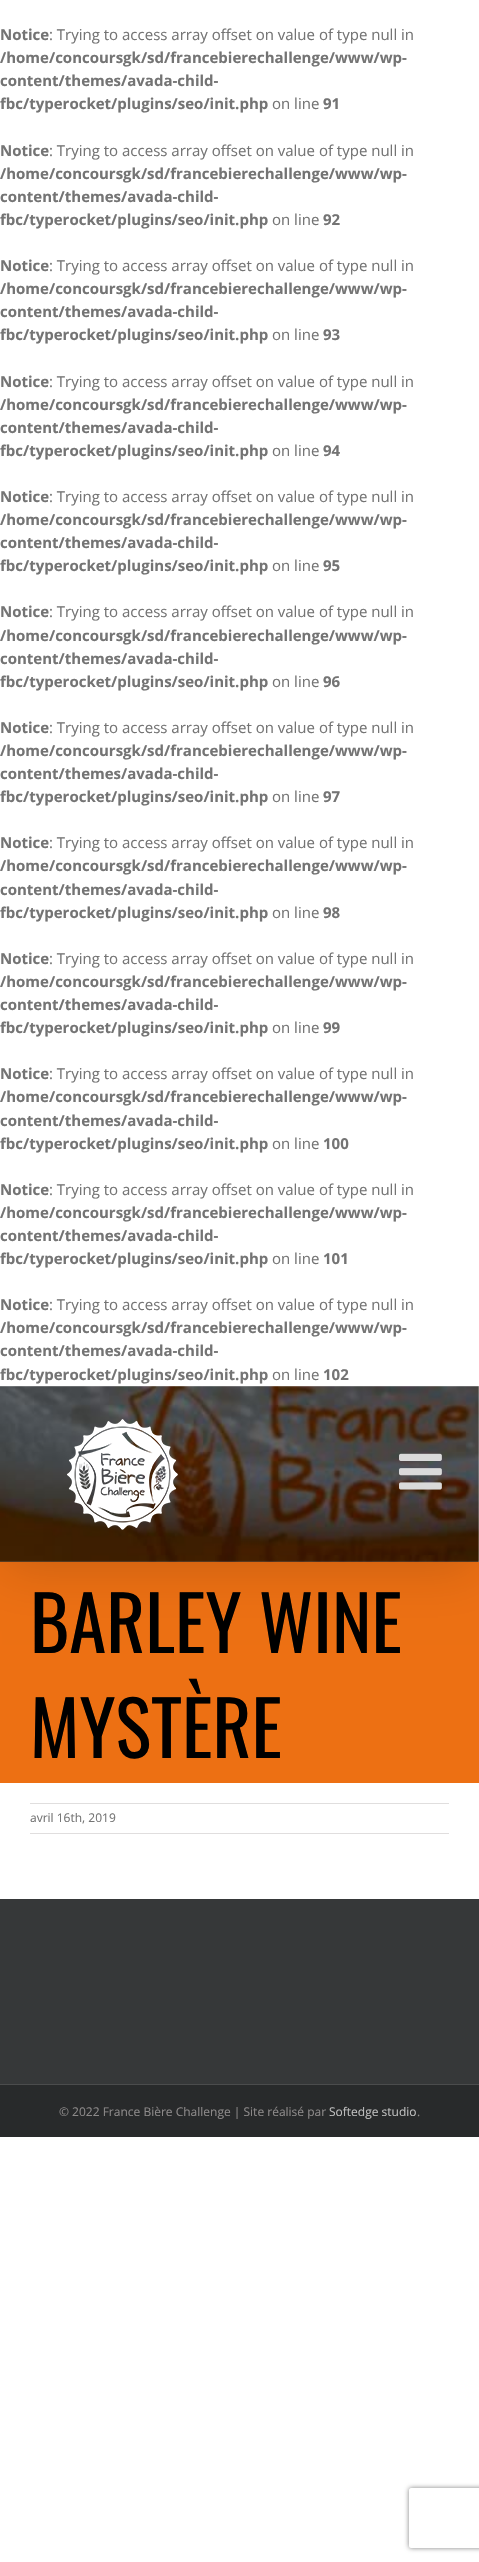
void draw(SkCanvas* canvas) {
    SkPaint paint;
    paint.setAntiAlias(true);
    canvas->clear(0xFFFFFFFF);
    SkFont font1(fontMgr->matchFamilyStyle("Open Sans", SkFontStyle::Bold()), 15);
    font1.setSubpixel(true);
    paint.setColor(0xFF747474);
    canvas->drawString("Notice", 0, 40, font1, paint);
    SkFont font2(fontMgr->matchFamilyStyle("Open Sans", SkFontStyle::Normal()), 15);
    font2.setSubpixel(true);
    canvas->drawString(": Trying to access array offset on value of type null in", 49, 40, font2, paint);
    canvas->drawString("/home/concoursgk/sd/francebierechallenge/www/wp-", 0, 63, font1, paint);
    canvas->drawString("content/themes/avada-child-", 0, 86, font1, paint);
    canvas->drawString("fbc/typerocket/plugins/seo/init.php", 0, 109, font1, paint);
    canvas->drawString("on line", 272, 109, font2, paint);
    canvas->drawString("91", 323, 109, font1, paint);
    canvas->drawString("Notice", 0, 156, font1, paint);
    canvas->drawString(": Trying to access array offset on value of type null in", 49, 156, font2, paint);
    canvas->drawString("/home/concoursgk/sd/francebierechallenge/www/wp-", 0, 179, font1, paint);
    canvas->drawString("content/themes/avada-child-", 0, 202, font1, paint);
    canvas->drawString("fbc/typerocket/plugins/seo/init.php", 0, 225, font1, paint);
    canvas->drawString("on line", 272, 225, font2, paint);
    canvas->drawString("92", 323, 225, font1, paint);
    canvas->drawString("Notice", 0, 271, font1, paint);
    canvas->drawString(": Trying to access array offset on value of type null in", 49, 271, font2, paint);
    canvas->drawString("/home/concoursgk/sd/francebierechallenge/www/wp-", 0, 294, font1, paint);
    canvas->drawString("content/themes/avada-child-", 0, 317, font1, paint);
    canvas->drawString("fbc/typerocket/plugins/seo/init.php", 0, 340, font1, paint);
    canvas->drawString("on line", 272, 340, font2, paint);
    canvas->drawString("93", 323, 340, font1, paint);
    canvas->drawString("Notice", 0, 387, font1, paint);
    canvas->drawString(": Trying to access array offset on value of type null in", 49, 387, font2, paint);
    canvas->drawString("/home/concoursgk/sd/francebierechallenge/www/wp-", 0, 410, font1, paint);
    canvas->drawString("content/themes/avada-child-", 0, 433, font1, paint);
    canvas->drawString("fbc/typerocket/plugins/seo/init.php", 0, 456, font1, paint);
    canvas->drawString("on line", 272, 456, font2, paint);
    canvas->drawString("94", 323, 456, font1, paint);
    canvas->drawString("Notice", 0, 502, font1, paint);
    canvas->drawString(": Trying to access array offset on value of type null in", 49, 502, font2, paint);
    canvas->drawString("/home/concoursgk/sd/francebierechallenge/www/wp-", 0, 525, font1, paint);
    canvas->drawString("content/themes/avada-child-", 0, 548, font1, paint);
    canvas->drawString("fbc/typerocket/plugins/seo/init.php", 0, 571, font1, paint);
    canvas->drawString("on line", 272, 571, font2, paint);
    canvas->drawString("95", 323, 571, font1, paint);
    canvas->drawString("Notice", 0, 617, font1, paint);
    canvas->drawString(": Trying to access array offset on value of type null in", 49, 617, font2, paint);
    canvas->drawString("/home/concoursgk/sd/francebierechallenge/www/wp-", 0, 641, font1, paint);
    canvas->drawString("content/themes/avada-child-", 0, 664, font1, paint);
    canvas->drawString("fbc/typerocket/plugins/seo/init.php", 0, 687, font1, paint);
    canvas->drawString("on line", 272, 687, font2, paint);
    canvas->drawString("96", 323, 687, font1, paint);
    canvas->drawString("Notice", 0, 733, font1, paint);
    canvas->drawString(": Trying to access array offset on value of type null in", 49, 733, font2, paint);
    canvas->drawString("/home/concoursgk/sd/francebierechallenge/www/wp-", 0, 756, font1, paint);
    canvas->drawString("content/themes/avada-child-", 0, 779, font1, paint);
    canvas->drawString("fbc/typerocket/plugins/seo/init.php", 0, 802, font1, paint);
    canvas->drawString("on line", 272, 802, font2, paint);
    canvas->drawString("97", 323, 802, font1, paint);
    canvas->drawString("Notice", 0, 848, font1, paint);
    canvas->drawString(": Trying to access array offset on value of type null in", 49, 848, font2, paint);
    canvas->drawString("/home/concoursgk/sd/francebierechallenge/www/wp-", 0, 871, font1, paint);
    canvas->drawString("content/themes/avada-child-", 0, 895, font1, paint);
    canvas->drawString("fbc/typerocket/plugins/seo/init.php", 0, 918, font1, paint);
    canvas->drawString("on line", 272, 918, font2, paint);
    canvas->drawString("98", 323, 918, font1, paint);
    canvas->drawString("Notice", 0, 964, font1, paint);
    canvas->drawString(": Trying to access array offset on value of type null in", 49, 964, font2, paint);
    canvas->drawString("/home/concoursgk/sd/francebierechallenge/www/wp-", 0, 987, font1, paint);
    canvas->drawString("content/themes/avada-child-", 0, 1010, font1, paint);
    canvas->drawString("fbc/typerocket/plugins/seo/init.php", 0, 1033, font1, paint);
    canvas->drawString("on line", 272, 1033, font2, paint);
    canvas->drawString("99", 323, 1033, font1, paint);
    canvas->drawString("Notice", 0, 1079, font1, paint);
    canvas->drawString(": Trying to access array offset on value of type null in", 49, 1079, font2, paint);
    canvas->drawString("/home/concoursgk/sd/francebierechallenge/www/wp-", 0, 1102, font1, paint);
    canvas->drawString("content/themes/avada-child-", 0, 1126, font1, paint);
    canvas->drawString("fbc/typerocket/plugins/seo/init.php", 0, 1149, font1, paint);
    canvas->drawString("on line", 272, 1149, font2, paint);
    canvas->drawString("100", 323, 1149, font1, paint);
    canvas->drawString("Notice", 0, 1195, font1, paint);
    canvas->drawString(": Trying to access array offset on value of type null in", 49, 1195, font2, paint);
    canvas->drawString("/home/concoursgk/sd/francebierechallenge/www/wp-", 0, 1218, font1, paint);
    canvas->drawString("content/themes/avada-child-", 0, 1241, font1, paint);
    canvas->drawString("fbc/typerocket/plugins/seo/init.php", 0, 1264, font1, paint);
    canvas->drawString("on line", 272, 1264, font2, paint);
    canvas->drawString("101", 323, 1264, font1, paint);
    canvas->drawString("Notice", 0, 1310, font1, paint);
    canvas->drawString(": Trying to access array offset on value of type null in", 49, 1310, font2, paint);
    canvas->drawString("/home/concoursgk/sd/francebierechallenge/www/wp-", 0, 1333, font1, paint);
    canvas->drawString("content/themes/avada-child-", 0, 1356, font1, paint);
    canvas->drawString("fbc/typerocket/plugins/seo/init.php", 0, 1380, font1, paint);
    canvas->drawString("on line", 272, 1380, font2, paint);
    canvas->drawString("102", 323, 1380, font1, paint);
    paint.setColor(0xFFED7013);
    canvas->drawRect(SkRect::MakeXYWH(0, 1562, 479, 221), paint);
    canvas->save();
    canvas->clipRect(SkRect::MakeXYWH(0, 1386, 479, 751));
    paint.setColor(0x24000000);
    paint.setMaskFilter(SkMaskFilter::MakeBlur(kNormal_SkBlurStyle, 25));
    canvas->drawRect(SkRect::MakeXYWH(2, 1398, 475, 172), paint);
    paint.setMaskFilter(nullptr);
    canvas->restore();
    canvas->drawImageRect(SkImages::DeferredFromEncodedData(SkData::MakeFromFileName("img1.png")), SkRect::MakeXYWH(0, 1386, 479, 176), SkSamplingOptions());
    canvas->drawImageRect(SkImages::DeferredFromEncodedData(SkData::MakeFromFileName("img2.png")), SkRect::MakeXYWH(67, 1419, 111, 111), SkSamplingOptions());
    canvas->drawImageRect(SkImages::DeferredFromEncodedData(SkData::MakeFromFileName("img3.png")), SkRect::MakeXYWH(399, 1453, 43, 37), SkSamplingOptions());
    SkFont font3(fontMgr->matchFamilyStyle("Oswald", SkFontStyle::Normal()), 75);
    font3.setSubpixel(true);
    paint.setColor(0xFF000000);
    canvas->drawString("BARLEY WINE", 30, 1653, font3, paint);
    canvas->drawString("MYSTÈRE", 30, 1758, font3, paint);
    paint.setColor(0xFFE0DEDE);
    canvas->drawRect(SkRect::MakeXYWH(30, 1803, 419, 1), paint);
    canvas->drawRect(SkRect::MakeXYWH(30, 1833, 419, 1), paint);
    SkFont font4(fontMgr->matchFamilyStyle("Open Sans", SkFontStyle::Normal()), 12);
    font4.setSubpixel(true);
    paint.setColor(0xFF747474);
    canvas->drawString("avril 16th, 2019", 30, 1822, font4, paint);
    paint.setColor(0xFF363839);
    canvas->drawRect(SkRect::MakeXYWH(0, 1899, 479, 185), paint);
    paint.setColor(0xFF282A2B);
    canvas->drawRect(SkRect::MakeXYWH(0, 2085, 479, 52), paint);
    paint.setColor(0xFF4B4C4D);
    canvas->drawRect(SkRect::MakeXYWH(0, 2084, 479, 1), paint);
    paint.setColor(0xFF8C8989);
    canvas->drawString("© 2022 France Bière Challenge | Site réalisé par", 59, 2116, font4, paint);
    paint.setColor(0xFFBFBFBF);
    canvas->drawString("Softedge studio", 329, 2116, font4, paint);
    paint.setColor(0xFF8C8989);
    canvas->drawString(".", 417, 2116, font4, paint);
    canvas->save();
    canvas->clipPath(SkPathBuilder(SkPathFillType::kEvenOdd).moveTo(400, 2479).lineTo(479, 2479).lineTo(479, 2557).lineTo(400, 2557).close().moveTo(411, 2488).lineTo(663, 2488).cubicTo(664, 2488, 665, 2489, 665, 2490).lineTo(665, 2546).cubicTo(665, 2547, 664, 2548, 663, 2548).lineTo(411, 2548).cubicTo(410, 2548, 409, 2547, 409, 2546).lineTo(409, 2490).cubicTo(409, 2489, 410, 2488, 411, 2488).close().detach(), true);
    paint.setColor(0xFF808080);
    paint.setMaskFilter(SkMaskFilter::MakeBlur(kNormal_SkBlurStyle, 2.5f));
    canvas->drawRoundRect(SkRect::MakeXYWH(409, 2488, 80, 60), 2, 2, paint);
    paint.setMaskFilter(nullptr);
    canvas->restore();
}
